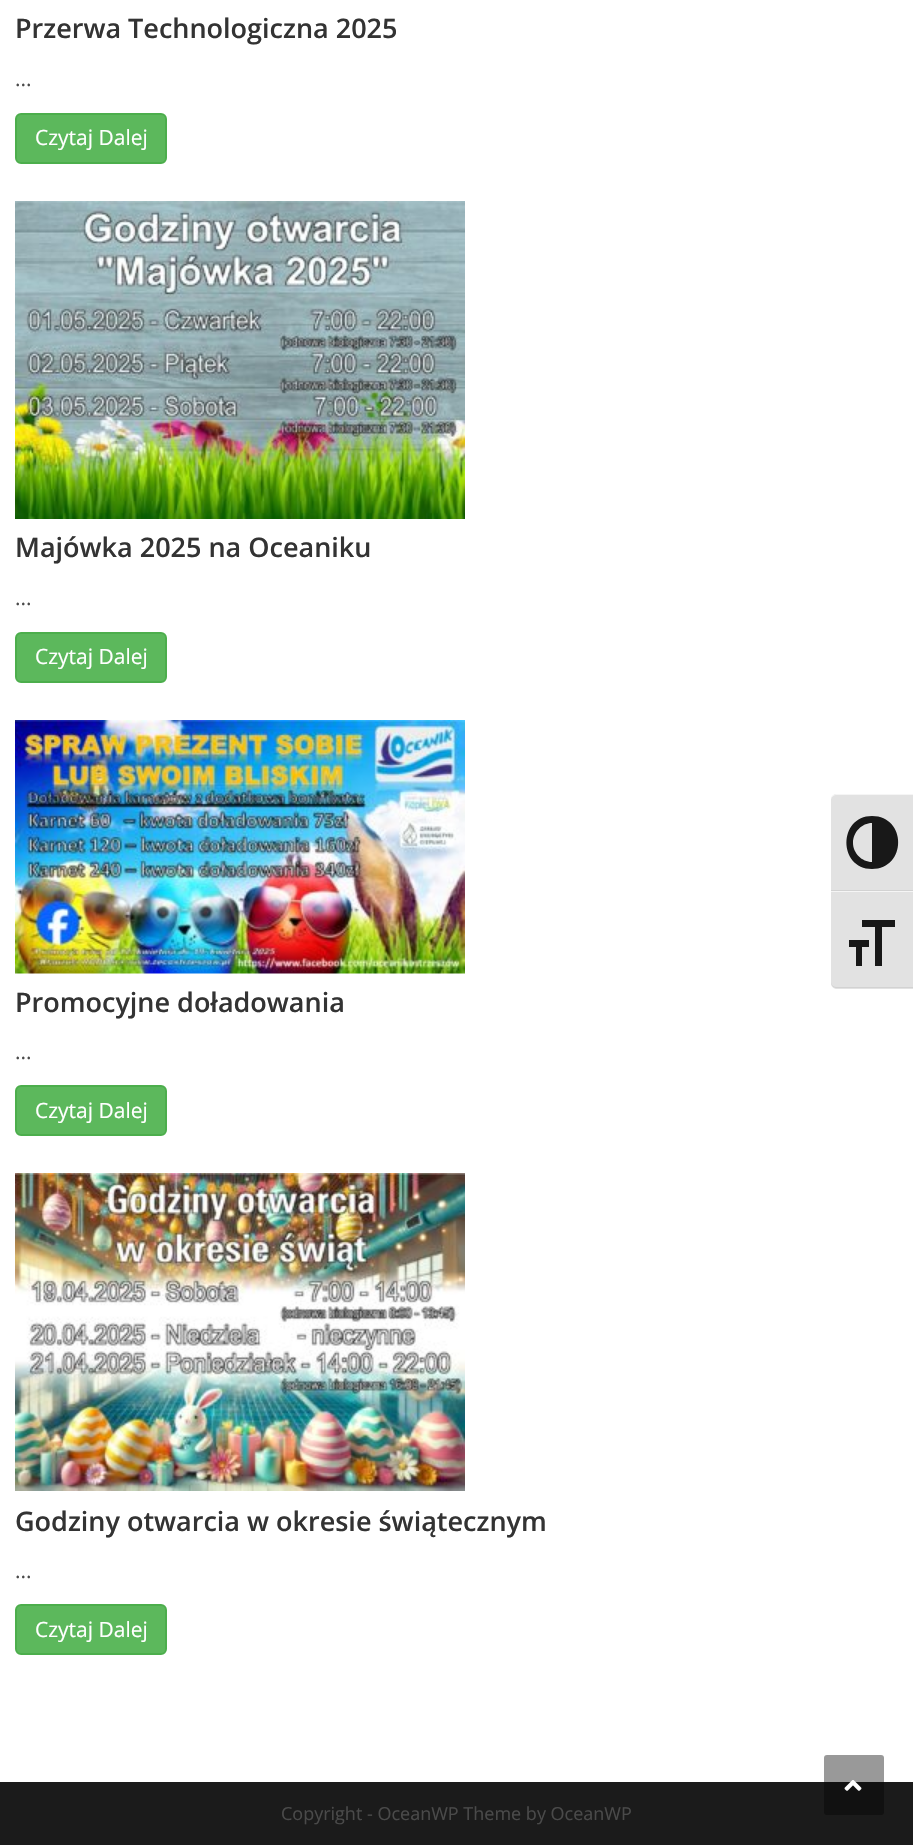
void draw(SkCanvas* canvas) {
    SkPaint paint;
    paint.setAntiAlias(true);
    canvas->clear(0xFFFFFFFF);
    SkFont font1(fontMgr->matchFamilyStyle("Open Sans", SkFontStyle(600, SkFontStyle::kNormal_Width, SkFontStyle::kUpright_Slant)), 27);
    font1.setSubpixel(true);
    paint.setColor(0xFF333333);
    canvas->drawString("Przerwa Technologiczna 2025", 15, 38, font1, paint);
    SkFont font2(fontMgr->matchFamilyStyle("Open Sans", SkFontStyle::Normal()), 21);
    font2.setSubpixel(true);
    paint.setColor(0xFF4A4A4A);
    canvas->drawString("...", 15, 86, font2, paint);
    paint.setColor(0xFF5CB85C);
    canvas->drawRoundRect(SkRect::MakeXYWH(16, 114, 150, 49), 5, 5, paint);
    paint.setStyle(SkPaint::kStroke_Style);
    paint.setStrokeWidth(2);
    paint.setColor(0xFF4CAE4C);
    canvas->drawRoundRect(SkRect::MakeXYWH(16, 114, 150, 49), 5, 5, paint);
    paint.setStyle(SkPaint::kFill_Style);
    paint.setColor(0xFFFFFFFF);
    canvas->drawString("Czytaj Dalej", 35, 145, font2, paint);
    canvas->drawImageRect(SkImages::DeferredFromEncodedData(SkData::MakeFromFileName("img1.png")), SkRect::MakeXYWH(15, 201, 450, 318), SkSamplingOptions());
    paint.setColor(0xFF333333);
    canvas->drawString("Majówka 2025 na Oceaniku", 15, 557, font1, paint);
    paint.setColor(0xFF4A4A4A);
    canvas->drawString("...", 15, 605, font2, paint);
    paint.setColor(0xFF5CB85C);
    canvas->drawRoundRect(SkRect::MakeXYWH(16, 633, 150, 49), 5, 5, paint);
    paint.setStyle(SkPaint::kStroke_Style);
    paint.setColor(0xFF4CAE4C);
    canvas->drawRoundRect(SkRect::MakeXYWH(16, 633, 150, 49), 5, 5, paint);
    paint.setStyle(SkPaint::kFill_Style);
    paint.setColor(0xFFFFFFFF);
    canvas->drawString("Czytaj Dalej", 35, 664, font2, paint);
    canvas->drawImageRect(SkImages::DeferredFromEncodedData(SkData::MakeFromFileName("img2.png")), SkRect::MakeXYWH(15, 720, 450, 254), SkSamplingOptions());
    paint.setColor(0xFF333333);
    canvas->drawString("Promocyjne doładowania", 15, 1012, font1, paint);
    paint.setColor(0xFF4A4A4A);
    canvas->drawString("...", 15, 1059, font2, paint);
    paint.setColor(0xFF5CB85C);
    canvas->drawRoundRect(SkRect::MakeXYWH(16, 1086, 150, 49), 5, 5, paint);
    paint.setStyle(SkPaint::kStroke_Style);
    paint.setColor(0xFF4CAE4C);
    canvas->drawRoundRect(SkRect::MakeXYWH(16, 1086, 150, 49), 5, 5, paint);
    paint.setStyle(SkPaint::kFill_Style);
    paint.setColor(0xFFFFFFFF);
    canvas->drawString("Czytaj Dalej", 35, 1118, font2, paint);
    canvas->drawImageRect(SkImages::DeferredFromEncodedData(SkData::MakeFromFileName("img3.png")), SkRect::MakeXYWH(15, 1173, 450, 318), SkSamplingOptions());
    paint.setColor(0xFF333333);
    canvas->drawString("Godziny otwarcia w okresie świątecznym", 15, 1531, font1, paint);
    paint.setColor(0xFF4A4A4A);
    canvas->drawString("...", 15, 1578, font2, paint);
    paint.setColor(0xFF5CB85C);
    canvas->drawRoundRect(SkRect::MakeXYWH(16, 1605, 150, 49), 5, 5, paint);
    paint.setStyle(SkPaint::kStroke_Style);
    paint.setColor(0xFF4CAE4C);
    canvas->drawRoundRect(SkRect::MakeXYWH(16, 1605, 150, 49), 5, 5, paint);
    paint.setStyle(SkPaint::kFill_Style);
    paint.setColor(0xFFFFFFFF);
    canvas->drawString("Czytaj Dalej", 35, 1637, font2, paint);
    paint.setColor(0xFF1B1B1B);
    canvas->drawRect(SkRect::MakeXYWH(0, 1782, 913, 63), paint);
    SkFont font3(fontMgr->matchFamilyStyle("Open Sans", SkFontStyle::Normal()), 18);
    font3.setSubpixel(true);
    paint.setColor(0xFF4A4A4A);
    canvas->drawString("Copyright - OceanWP Theme by OceanWP", 281, 1820, font3, paint);
    paint.setColor(0xFFE2E2E2);
    canvas->drawPath(SkPathBuilder().moveTo(837, 794).lineTo(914, 794).lineTo(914, 891).lineTo(831, 891).lineTo(831, 800).cubicTo(831, 796.5f, 833.5f, 794, 837, 794).close().detach(), paint);
    paint.setColor(0xFFF5F5F5);
    canvas->drawPath(SkPathBuilder().moveTo(837, 794).lineTo(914, 794).lineTo(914, 795).lineTo(837, 795).cubicTo(834, 795, 831, 797, 831, 800).cubicTo(831, 796, 834, 794, 837, 794).close().detach(), paint);
    paint.setColor(0xFFD2D2D2);
    canvas->drawRect(SkRect::MakeXYWH(831, 890, 82, 1), paint);
    paint.setColor(0xFF181818);
    canvas->drawPath(SkPathBuilder().moveTo(872, 816).cubicTo(838, 816, 838, 869, 872, 869).cubicTo(907, 869, 907, 816, 872, 816).close().moveTo(853, 843).cubicTo(853, 832, 862, 823, 872, 823).lineTo(872, 862).cubicTo(862, 862, 853, 853, 853, 843).close().detach(), paint);
    paint.setColor(0xFFE2E2E2);
    canvas->drawPath(SkPathBuilder().moveTo(831, 891).lineTo(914, 891).lineTo(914, 989).lineTo(837, 989).cubicTo(833.5f, 989, 831, 986.5f, 831, 983).close().detach(), paint);
    paint.setColor(0xFFF5F5F5);
    canvas->drawRect(SkRect::MakeXYWH(831, 891, 82, 1), paint);
    paint.setColor(0xFFD2D2D2);
    canvas->drawPath(SkPathBuilder().moveTo(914, 987).lineTo(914, 988).lineTo(837, 988).cubicTo(834, 988, 831, 986, 831, 982).cubicTo(831, 985, 834, 987, 837, 987).close().detach(), paint);
    paint.setColor(0xFF181818);
    canvas->drawPath(SkPathBuilder().moveTo(849, 940).lineTo(869, 940).lineTo(869, 947).lineTo(862, 947).lineTo(862, 966).lineTo(856, 966).lineTo(856, 947).lineTo(849, 947).close().moveTo(895, 927).lineTo(882, 927).lineTo(882, 966).lineTo(875, 966).lineTo(875, 927).lineTo(862, 927).lineTo(862, 920).lineTo(895, 920).close().detach(), paint);
    paint.setColor(0x66000000);
    canvas->drawRoundRect(SkRect::MakeXYWH(824, 1755, 60, 60), 3, 3, paint);
    canvas->drawImageRect(SkImages::DeferredFromEncodedData(SkData::MakeFromFileName("img4.png")), SkRect::MakeXYWH(844, 1780, 18, 11), SkSamplingOptions());
}
